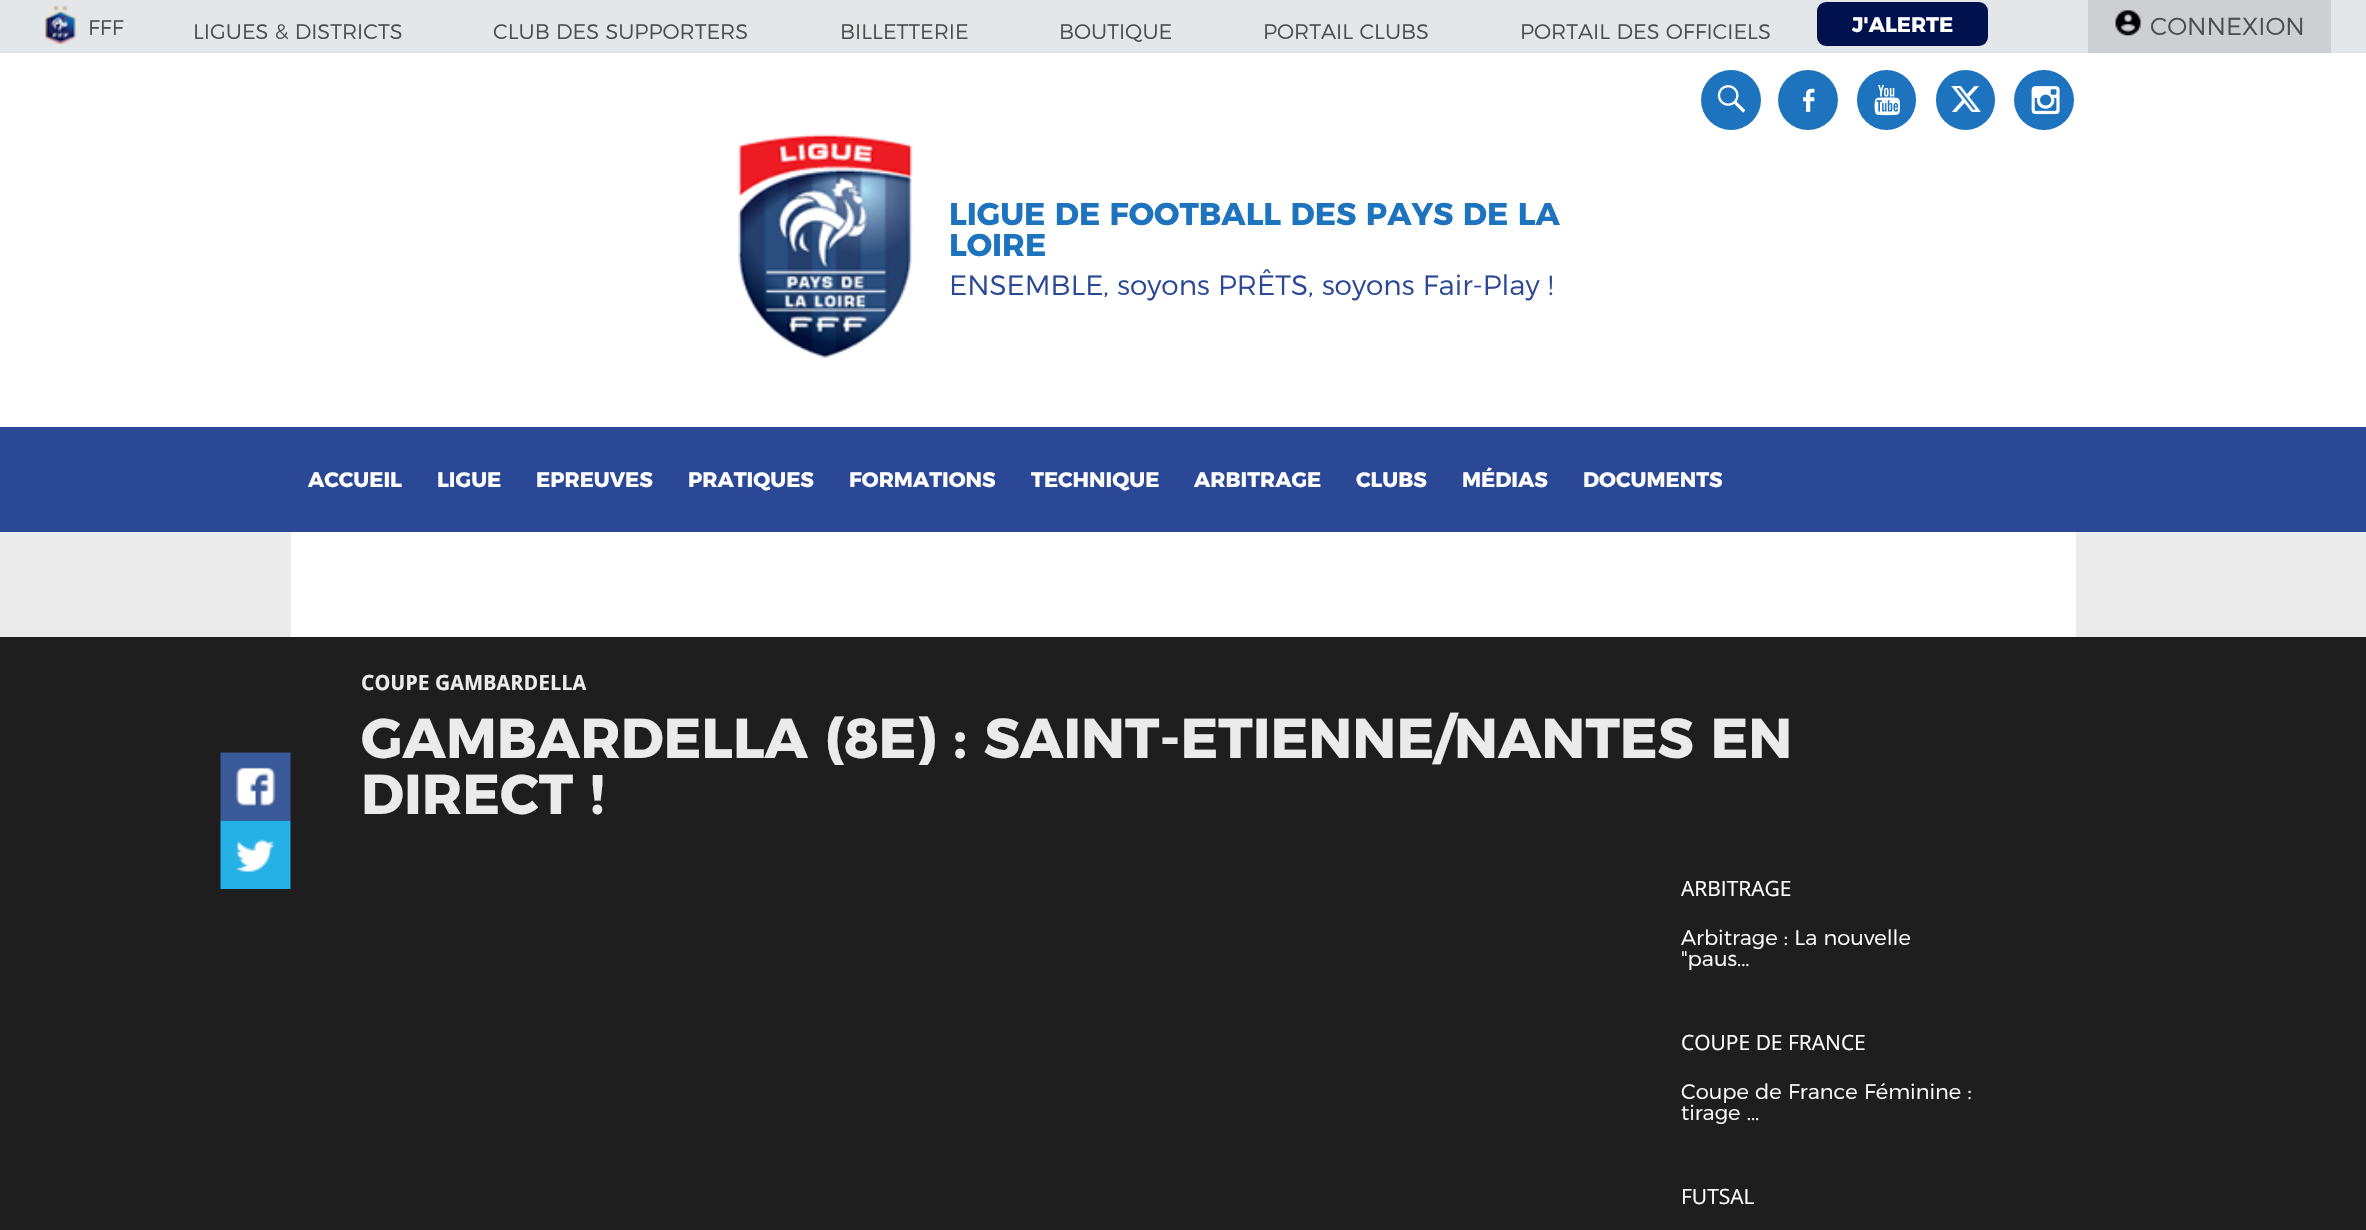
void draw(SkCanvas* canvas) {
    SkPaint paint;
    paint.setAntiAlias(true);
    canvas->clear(0xFFEBEBEB);
    paint.setColor(0xFFE3E7EA);
    canvas->drawRect(SkRect::MakeXYWH(0, 0, 2366, 53), paint);
    canvas->drawImageRect(SkImages::DeferredFromEncodedData(SkData::MakeFromFileName("img1.png")), SkRect::MakeXYWH(45, 5, 31, 39), SkSamplingOptions());
    SkFont font1(fontMgr->matchFamilyStyle("Montserrat", SkFontStyle(300, SkFontStyle::kNormal_Width, SkFontStyle::kUpright_Slant)), 21);
    font1.setSubpixel(true);
    paint.setColor(0xFF4E4E4E);
    canvas->drawString("FFF", 88, 35, font1, paint);
    canvas->drawString("LIGUES & DISTRICTS", 193, 39, font1, paint);
    canvas->drawString("CLUB DES SUPPORTERS", 493, 39, font1, paint);
    canvas->drawString("BILLETTERIE", 840, 39, font1, paint);
    canvas->drawString("BOUTIQUE", 1059, 39, font1, paint);
    canvas->drawString("PORTAIL CLUBS", 1263, 39, font1, paint);
    canvas->drawString("PORTAIL DES OFFICIELS", 1520, 39, font1, paint);
    paint.setColor(0xFF01114E);
    canvas->drawRoundRect(SkRect::MakeXYWH(1817, 2, 171, 44), 9, 9, paint);
    SkFont font2(fontMgr->matchFamilyStyle("Montserrat", SkFontStyle::Bold()), 21);
    font2.setSubpixel(true);
    paint.setColor(0xFFFFFFFF);
    canvas->drawString("J'ALERTE", 1852, 32, font2, paint);
    paint.setColor(0xFFCCD0D3);
    canvas->drawRect(SkRect::MakeXYWH(2088, 0, 243, 53), paint);
    canvas->drawImageRect(SkImages::DeferredFromEncodedData(SkData::MakeFromFileName("img2.png")), SkRect::MakeXYWH(2115, 10, 26, 26), SkSamplingOptions());
    SkFont font3(fontMgr->matchFamilyStyle("Montserrat", SkFontStyle(300, SkFontStyle::kNormal_Width, SkFontStyle::kUpright_Slant)), 24.5f);
    font3.setSubpixel(true);
    paint.setColor(0xFF4E4E4E);
    canvas->drawString("CONNEXION", 2150, 35, font3, paint);
    paint.setColor(0xFFFFFFFF);
    canvas->drawRect(SkRect::MakeXYWH(0, 53, 2366, 374), paint);
    paint.setColor(0xFF1E73BE);
    canvas->drawCircle(1731, 100, 30, paint);
    canvas->drawImageRect(SkImages::DeferredFromEncodedData(SkData::MakeFromFileName("img3.png")), SkRect::MakeXYWH(1717, 85, 29, 28), SkSamplingOptions());
    canvas->drawCircle(1808, 100, 30, paint);
    canvas->drawImageRect(SkImages::DeferredFromEncodedData(SkData::MakeFromFileName("img4.png")), SkRect::MakeXYWH(1803, 88, 12, 24), SkSamplingOptions());
    canvas->drawRoundRect(SkRect::MakeXYWH(1857, 70, 59, 60), 29.5f, 29.5f, paint);
    canvas->drawImageRect(SkImages::DeferredFromEncodedData(SkData::MakeFromFileName("img5.png")), SkRect::MakeXYWH(1874, 85, 26, 31), SkSamplingOptions());
    canvas->drawRoundRect(SkRect::MakeXYWH(1936, 70, 59, 60), 29.5f, 29.5f, paint);
    canvas->drawImageRect(SkImages::DeferredFromEncodedData(SkData::MakeFromFileName("img6.png")), SkRect::MakeXYWH(1951, 86, 30, 26), SkSamplingOptions());
    canvas->drawCircle(2044, 100, 30, paint);
    canvas->drawImageRect(SkImages::DeferredFromEncodedData(SkData::MakeFromFileName("img7.png")), SkRect::MakeXYWH(2031, 86, 29, 29), SkSamplingOptions());
    canvas->drawImageRect(SkImages::DeferredFromEncodedData(SkData::MakeFromFileName("img8.png")), SkRect::MakeXYWH(738, 134, 175, 224), SkSamplingOptions());
    SkFont font4(fontMgr->matchFamilyStyle("Montserrat", SkFontStyle::Bold()), 31.5f);
    font4.setSubpixel(true);
    canvas->drawString("LIGUE DE FOOTBALL DES PAYS DE LA", 949, 225, font4, paint);
    canvas->drawString("LOIRE", 949, 256, font4, paint);
    SkFont font5(fontMgr->matchFamilyStyle("Montserrat", SkFontStyle(300, SkFontStyle::kNormal_Width, SkFontStyle::kUpright_Slant)), 28);
    font5.setSubpixel(true);
    paint.setColor(0xFF2A4896);
    canvas->drawString("ENSEMBLE, soyons PRÊTS, soyons Fair-Play !", 949, 295, font5, paint);
    canvas->drawRect(SkRect::MakeXYWH(0, 427, 2366, 105), paint);
    paint.setColor(0xFFFFFFFF);
    canvas->drawString("ACCUEIL", 308, 487, font2, paint);
    canvas->drawString("LIGUE", 437, 487, font2, paint);
    canvas->drawString("EPREUVES", 536, 487, font2, paint);
    canvas->drawString("PRATIQUES", 688, 487, font2, paint);
    canvas->drawString("FORMATIONS", 849, 487, font2, paint);
    canvas->drawString("TECHNIQUE", 1031, 487, font2, paint);
    canvas->drawString("ARBITRAGE", 1194, 487, font2, paint);
    canvas->drawString("CLUBS", 1356, 487, font2, paint);
    canvas->drawString("MÉDIAS", 1462, 487, font2, paint);
    canvas->drawString("DOCUMENTS", 1583, 487, font2, paint);
    canvas->drawRect(SkRect::MakeXYWH(291, 532, 1785, 105), paint);
    paint.setColor(0xFF1E1E1E);
    canvas->drawRect(SkRect::MakeXYWH(0, 637, 2366, 593), paint);
    canvas->drawImageRect(SkImages::DeferredFromEncodedData(SkData::MakeFromFileName("img9.png")), SkRect::MakeXYWH(220, 752, 71, 69), SkSamplingOptions());
    canvas->drawImageRect(SkImages::DeferredFromEncodedData(SkData::MakeFromFileName("img10.png")), SkRect::MakeXYWH(220, 820, 71, 69), SkSamplingOptions());
    SkFont font6(fontMgr->matchFamilyStyle("Droid Sans", SkFontStyle::Bold()), 21);
    font6.setSubpixel(true);
    paint.setColor(0xFFEBEBEB);
    canvas->drawString("COUPE GAMBARDELLA", 361, 690, font6, paint);
    SkFont font7(fontMgr->matchFamilyStyle("Montserrat", SkFontStyle::Bold()), 56);
    font7.setSubpixel(true);
    canvas->drawString("GAMBARDELLA (8E) : SAINT-ETIENNE/NANTES EN", 361, 758, font7, paint);
    canvas->drawString("DIRECT !", 361, 814, font7, paint);
    SkFont font8(fontMgr->matchFamilyStyle("Open Sans", SkFontStyle::Normal()), 21);
    font8.setSubpixel(true);
    paint.setColor(0xFFFFFFFF);
    canvas->drawString("ARBITRAGE", 1681, 896, font8, paint);
    canvas->drawString("Arbitrage : La nouvelle", 1681, 945, font1, paint);
    canvas->drawString("\"paus...", 1681, 966, font1, paint);
    canvas->drawString("COUPE DE FRANCE", 1681, 1050, font8, paint);
    canvas->drawString("Coupe de France Féminine :", 1681, 1099, font1, paint);
    canvas->drawString("tirage ...", 1681, 1120, font1, paint);
    canvas->drawString("FUTSAL", 1681, 1204, font8, paint);
}
